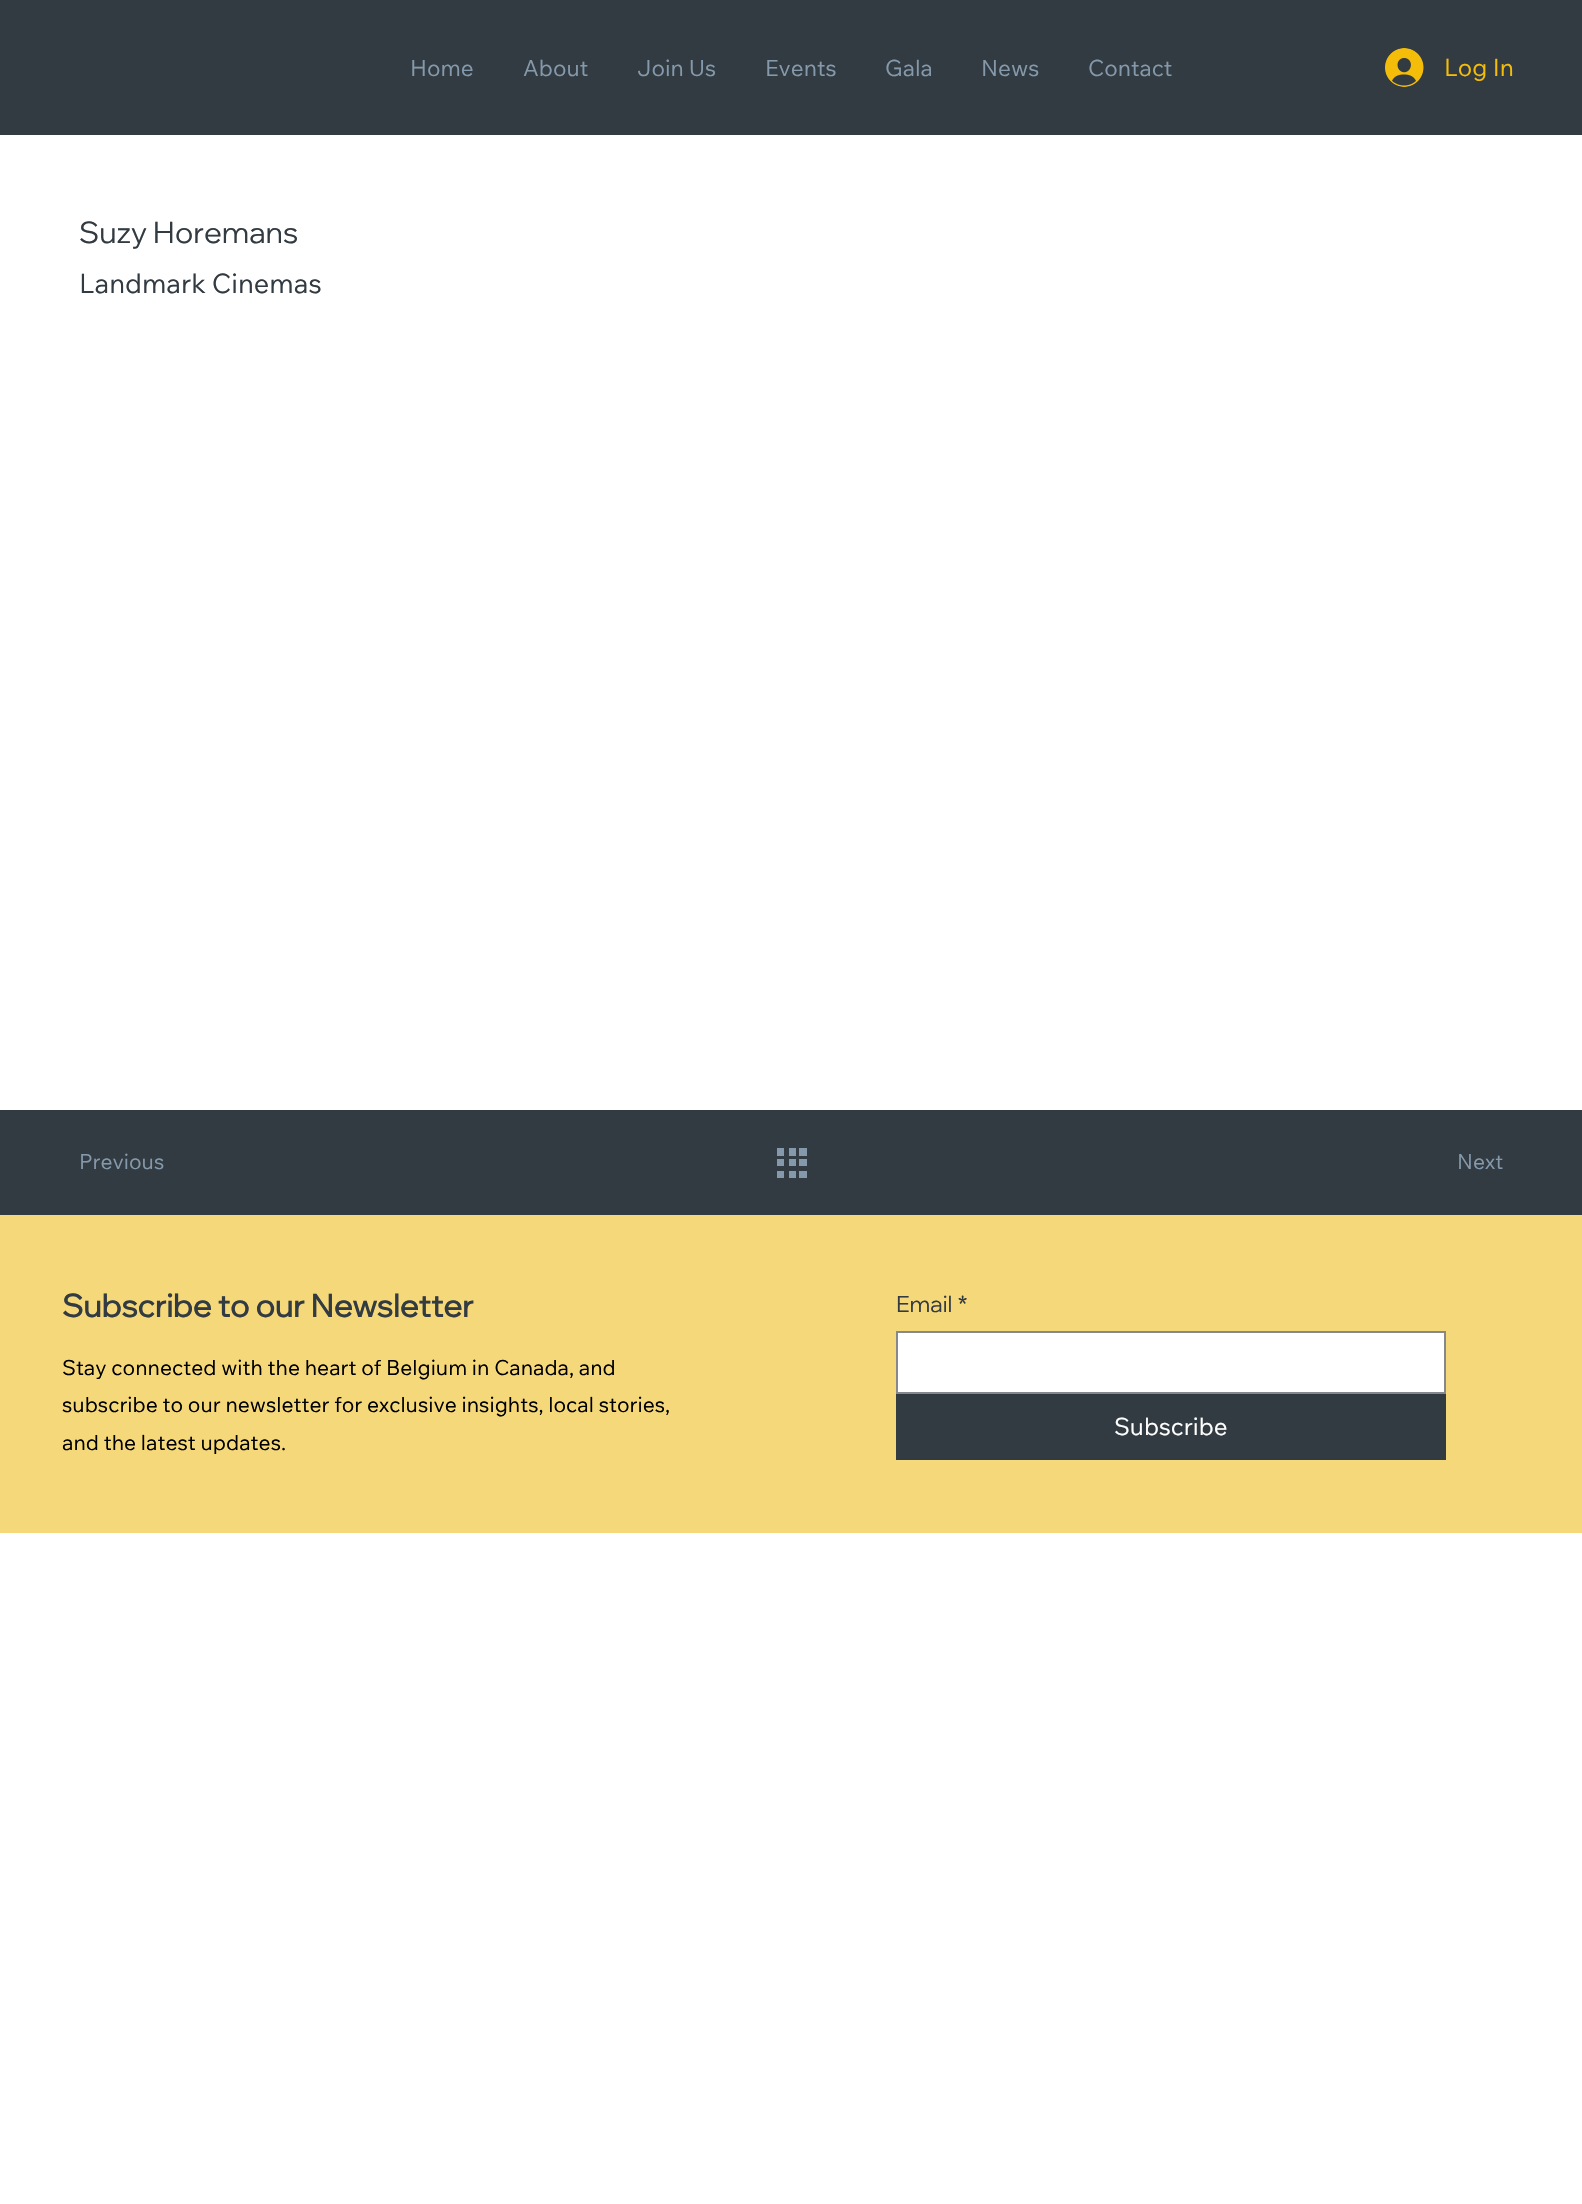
void draw(SkCanvas* canvas) {
    SkPaint paint;
    paint.setAntiAlias(true);
    canvas->clear(0xFFFFFFFF);
    paint.setColor(0xFF333B42);
    canvas->drawRect(SkRect::MakeXYWH(0, 0, 1582, 135), paint);
    SkFont font1(fontMgr->matchFamilyStyle("Wix Madefor Text", SkFontStyle::Normal()), 22.5f);
    font1.setSubpixel(true);
    paint.setColor(0xFF8499AB);
    canvas->drawString("Home", 410, 76, font1, paint);
    canvas->drawString("About", 523, 76, font1, paint);
    canvas->drawString("Join Us", 637, 76, font1, paint);
    canvas->drawString("Events", 765, 76, font1, paint);
    canvas->drawString("Gala", 885, 76, font1, paint);
    canvas->drawString("News", 981, 76, font1, paint);
    canvas->drawString("Contact", 1088, 76, font1, paint);
    canvas->drawImageRect(SkImages::DeferredFromEncodedData(SkData::MakeFromFileName("img1.png")), SkRect::MakeXYWH(1385, 48, 39, 39), SkSamplingOptions());
    SkFont font2(fontMgr->matchFamilyStyle("Wix Madefor Text", SkFontStyle::Normal()), 24);
    font2.setSubpixel(true);
    paint.setColor(0xFFF4BD09);
    canvas->drawString("Log In", 1444, 76, font2, paint);
    SkFont font3(fontMgr->matchFamilyStyle("Wix Madefor Display", SkFontStyle::Normal()), 29.75f);
    font3.setSubpixel(true);
    paint.setColor(0xFF333B42);
    canvas->drawString("Suzy Horemans", 79, 243, font3, paint);
    SkFont font4(fontMgr->matchFamilyStyle("Wix Madefor Text", SkFontStyle::Normal()), 27);
    font4.setSubpixel(true);
    canvas->drawString("Landmark Cinemas", 79, 293, font4, paint);
    canvas->drawRect(SkRect::MakeXYWH(0, 1110, 1582, 105), paint);
    SkFont font5(fontMgr->matchFamilyStyle("Wix Madefor Text", SkFontStyle::Normal()), 21);
    font5.setSubpixel(true);
    paint.setColor(0xFF8499AB);
    canvas->drawString("Previous", 79, 1169, font5, paint);
    canvas->drawImageRect(SkImages::DeferredFromEncodedData(SkData::MakeFromFileName("img2.png")), SkRect::MakeXYWH(777, 1148, 30, 30), SkSamplingOptions());
    canvas->drawString("Next", 1457, 1169, font5, paint);
    paint.setColor(0xFFF5D87A);
    canvas->drawRect(SkRect::MakeXYWH(0, 1215, 1582, 318), paint);
    SkFont font6(fontMgr->matchFamilyStyle("Wix Madefor Display", SkFontStyle::Bold()), 31.4f);
    font6.setSubpixel(true);
    paint.setColor(0xFF333B42);
    canvas->drawString("Subscribe to our Newsletter", 62, 1317, font6, paint);
    paint.setColor(0xFF000000);
    canvas->drawString("Stay connected with the heart of Belgium in Canada, and", 62, 1375, font5, paint);
    canvas->drawString("subscribe to our newsletter for exclusive insights, local stories,", 62, 1412, font5, paint);
    canvas->drawString("and the latest updates.", 62, 1450, font5, paint);
    SkFont font7(fontMgr->matchFamilyStyle("Wix Madefor Display", SkFontStyle::Normal()), 22.5f);
    font7.setSubpixel(true);
    paint.setColor(0xFF333B42);
    canvas->drawString("Email", 896, 1312, font7, paint);
    canvas->drawString("*", 958, 1312, font7, paint);
    paint.setColor(0xFFFFFFFF);
    canvas->drawRect(SkRect::MakeXYWH(897, 1332, 548, 61), paint);
    paint.setStyle(SkPaint::kStroke_Style);
    paint.setStrokeWidth(2);
    paint.setColor(0xFF85898E);
    canvas->drawRect(SkRect::MakeXYWH(897, 1332, 548, 61), paint);
    paint.setStyle(SkPaint::kFill_Style);
    paint.setColor(0xFF333B42);
    canvas->drawRect(SkRect::MakeXYWH(896, 1394, 550, 66), paint);
    paint.setColor(0xFFFFFFFF);
    canvas->drawString("Subscribe", 1114, 1435, font2, paint);
}
